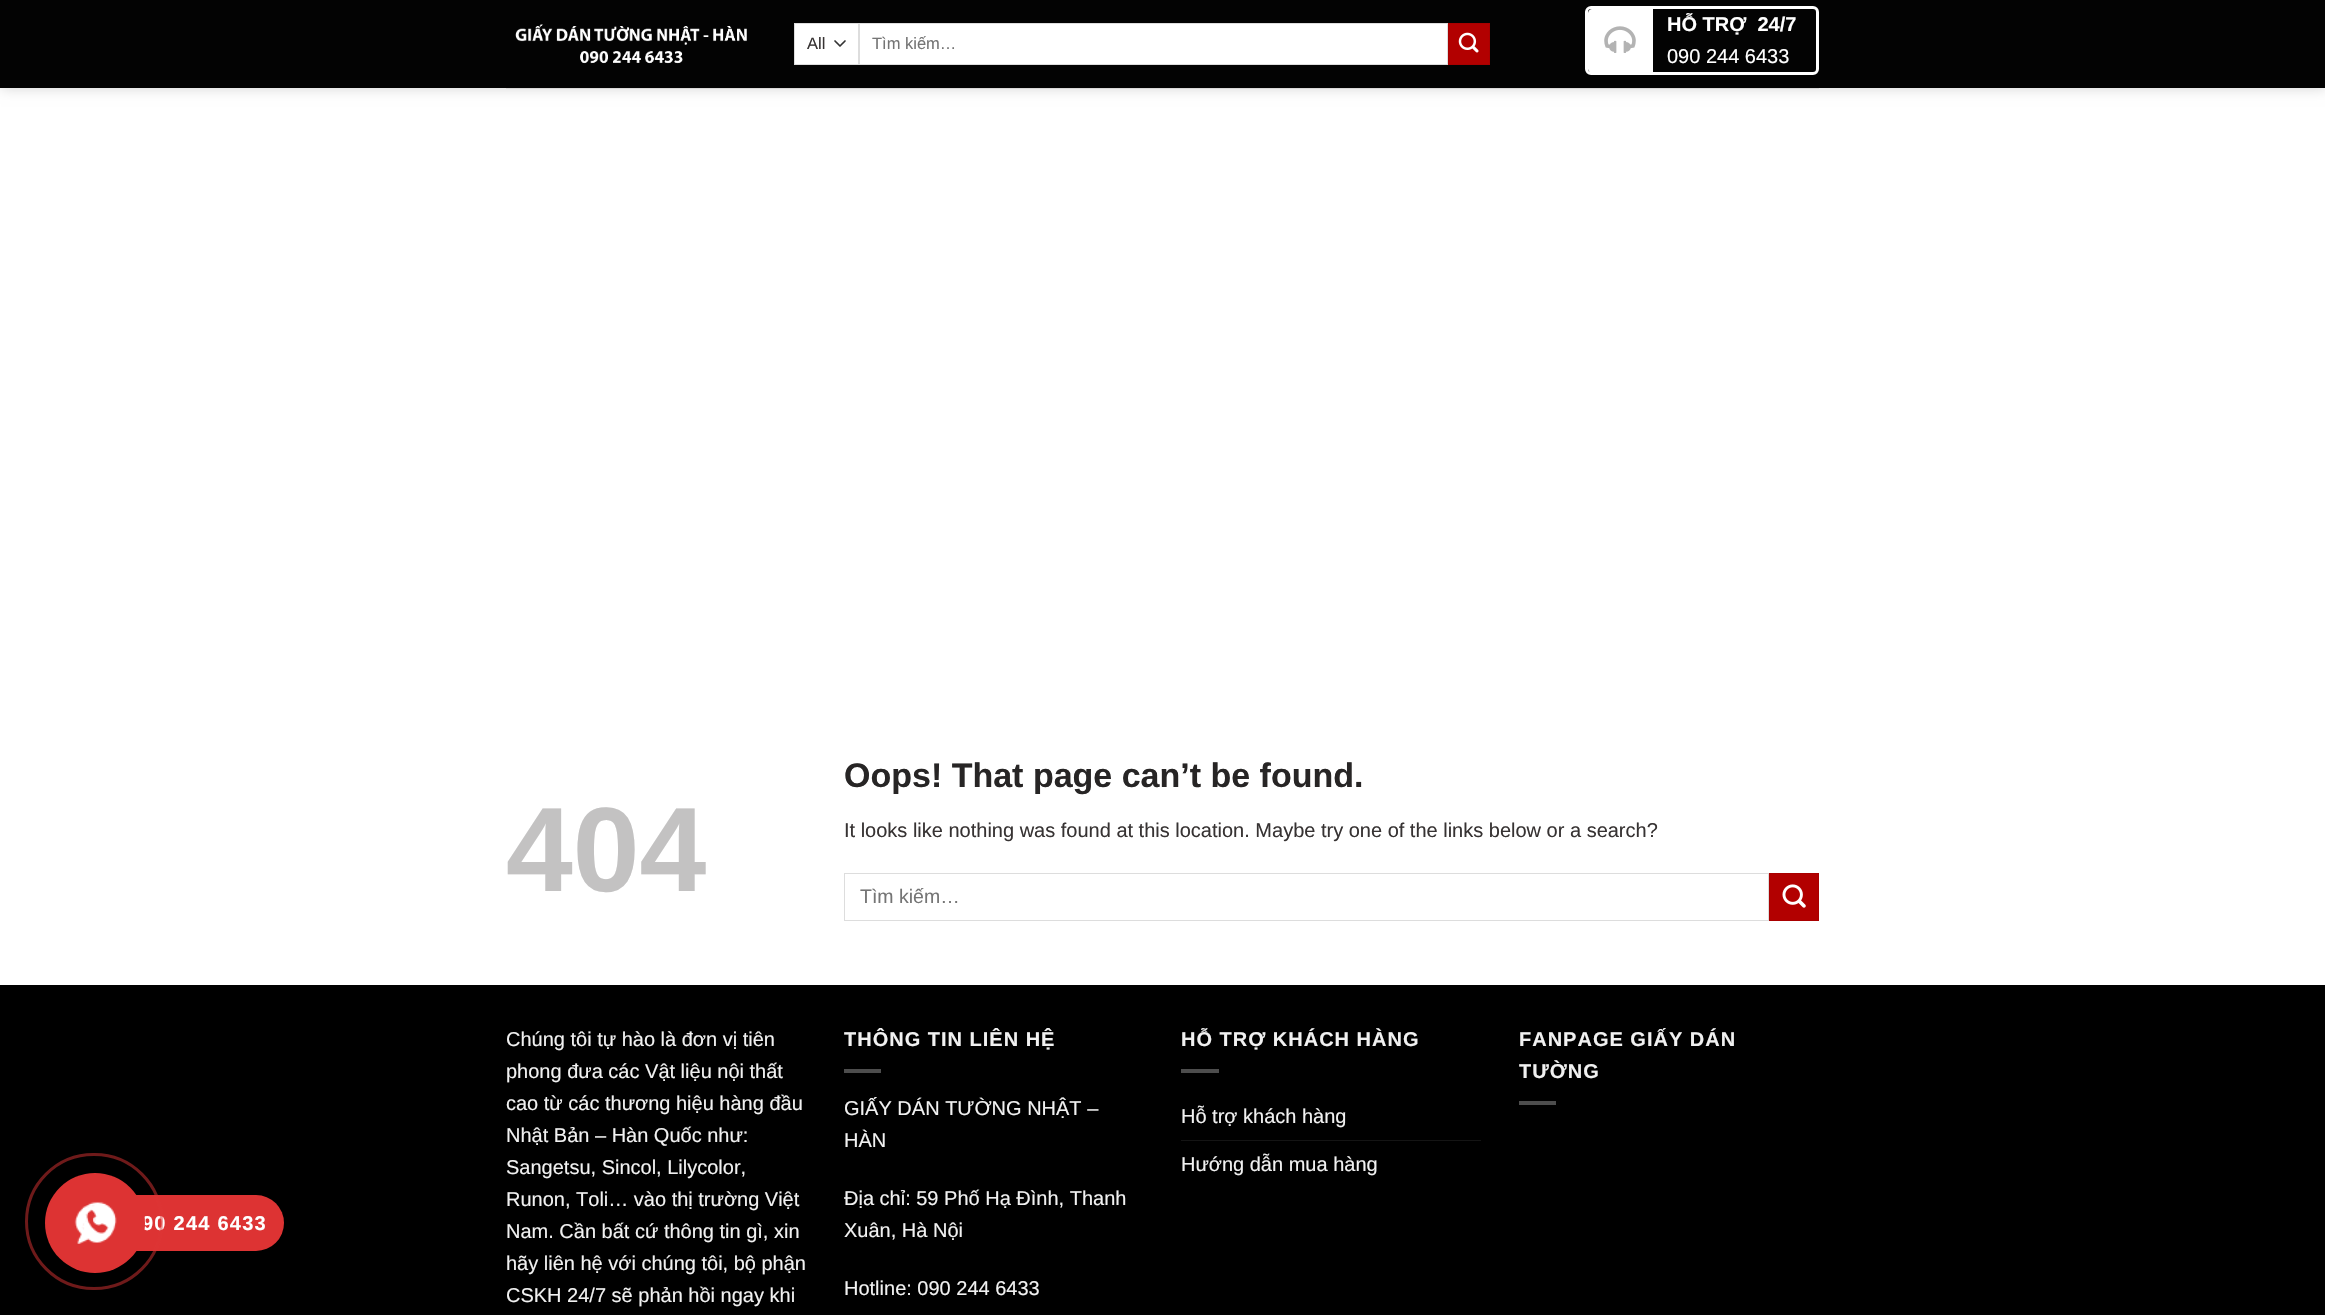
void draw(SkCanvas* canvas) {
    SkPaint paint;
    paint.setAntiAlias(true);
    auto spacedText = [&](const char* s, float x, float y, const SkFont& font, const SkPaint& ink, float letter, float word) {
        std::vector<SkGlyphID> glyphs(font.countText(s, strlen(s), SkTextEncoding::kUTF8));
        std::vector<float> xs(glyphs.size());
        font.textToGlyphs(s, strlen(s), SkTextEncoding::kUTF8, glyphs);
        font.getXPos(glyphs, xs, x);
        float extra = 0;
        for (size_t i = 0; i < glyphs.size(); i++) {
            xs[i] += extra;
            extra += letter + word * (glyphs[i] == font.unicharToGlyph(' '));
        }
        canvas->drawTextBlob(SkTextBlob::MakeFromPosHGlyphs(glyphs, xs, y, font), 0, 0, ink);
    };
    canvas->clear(0xFFFFFFFF);
    paint.setColor(0xFF000000);
    canvas->drawRect(SkRect::MakeXYWH(0, 985, 2325, 330), paint);
    paint.setColor(0xFFDD3333);
    canvas->drawRoundRect(SkRect::MakeXYWH(78, 1195, 206, 56), 28, 28, paint);
    SkFont font1(fontMgr->matchFamilyStyle("Liberation Sans", SkFontStyle::Bold()), 20);
    font1.setSubpixel(true);
    paint.setColor(0xFFFFFFFF);
    spacedText("90 244 6433", 142, 1230, font1, paint, 1.25f, 0);
    paint.setStyle(SkPaint::kStroke_Style);
    paint.setStrokeWidth(3);
    paint.setColor(0x80DD3333);
    canvas->drawRoundRect(SkRect::MakeXYWH(26.5f, 1154.5f, 135, 134), 67, 67, paint);
    paint.setStyle(SkPaint::kFill_Style);
    paint.setColor(0xFFDD3333);
    canvas->drawCircle(95, 1223, 50, paint);
    canvas->drawImageRect(SkImages::DeferredFromEncodedData(SkData::MakeFromFileName("img1.png")), SkRect::MakeXYWH(74, 1201, 43, 43), SkSamplingOptions());
    paint.setColor(0x26000000);
    paint.setMaskFilter(SkMaskFilter::MakeBlur(kNormal_SkBlurStyle, 6));
    canvas->drawRect(SkRect::MakeXYWH(1, 1, 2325, 88), paint);
    paint.setMaskFilter(nullptr);
    paint.setColor(0xFF030303);
    canvas->drawRect(SkRect::MakeXYWH(0, 0, 2325, 88), paint);
    canvas->drawImageRect(SkImages::DeferredFromEncodedData(SkData::MakeFromFileName("img2.png")), SkRect::MakeXYWH(515, 24, 232, 40), SkSamplingOptions());
    paint.setColor(0xFFFFFFFF);
    canvas->drawRect(SkRect::MakeXYWH(795, 24, 63, 40), paint);
    paint.setStyle(SkPaint::kStroke_Style);
    paint.setStrokeWidth(1.7f);
    paint.setStrokeCap(SkPaint::kRound_Cap);
    paint.setStrokeJoin(SkPaint::kRound_Join);
    paint.setColor(0xFF333333);
    canvas->drawPath(SkPathBuilder().moveTo(835, 41).lineTo(840, 46).lineTo(845, 41).detach(), paint);
    paint.setStrokeWidth(1);
    paint.setStrokeCap(SkPaint::kButt_Cap);
    paint.setStrokeJoin(SkPaint::kMiter_Join);
    paint.setColor(0xFFDDDDDD);
    canvas->drawRect(SkRect::MakeXYWH(794.5f, 23.5f, 64, 41), paint);
    SkFont font2(fontMgr->matchFamilyStyle("Liberation Sans", SkFontStyle::Normal()), 16.5f);
    font2.setSubpixel(true);
    paint.setStyle(SkPaint::kFill_Style);
    paint.setColor(0xFF373333);
    canvas->drawString("All", 807, 49, font2, paint);
    paint.setColor(0xFFFFFFFF);
    canvas->drawRect(SkRect::MakeXYWH(859.5f, 23.5f, 588, 41), paint);
    paint.setStyle(SkPaint::kStroke_Style);
    paint.setColor(0xFFDDDDDD);
    canvas->drawRect(SkRect::MakeXYWH(859.5f, 23.5f, 588, 41), paint);
    paint.setStyle(SkPaint::kFill_Style);
    paint.setColor(0xFF757575);
    canvas->drawString("Tìm kiếm…", 872, 49, font2, paint);
    paint.setColor(0xFFB20000);
    canvas->drawRect(SkRect::MakeXYWH(1448.5f, 23.5f, 41, 41), paint);
    paint.setStyle(SkPaint::kStroke_Style);
    paint.setColor(0xFFA90000);
    canvas->drawRect(SkRect::MakeXYWH(1448.5f, 23.5f, 41, 41), paint);
    canvas->drawImageRect(SkImages::DeferredFromEncodedData(SkData::MakeFromFileName("img3.png")), SkRect::MakeXYWH(1458, 32, 21, 21), SkSamplingOptions());
    paint.setStrokeWidth(3);
    paint.setColor(0xFFFFFFFF);
    canvas->drawRoundRect(SkRect::MakeXYWH(1586.5f, 7.5f, 231, 66), 4.5f, 4.5f, paint);
    paint.setStyle(SkPaint::kFill_Style);
    canvas->drawPath(SkPathBuilder().moveTo(1592, 9).lineTo(1653, 9).lineTo(1653, 73).lineTo(1592, 73).cubicTo(1590, 73, 1588, 71, 1588, 69).lineTo(1588, 13).cubicTo(1588, 11, 1590, 9, 1592, 9).close().detach(), paint);
    canvas->drawImageRect(SkImages::DeferredFromEncodedData(SkData::MakeFromFileName("img4.png")), SkRect::MakeXYWH(1604, 26, 32, 27), SkSamplingOptions());
    canvas->drawString("HỖ TRỢ  24/7", 1667, 31, font1, paint);
    SkFont font3(fontMgr->matchFamilyStyle("Liberation Sans", SkFontStyle::Normal()), 20);
    font3.setSubpixel(true);
    canvas->drawString("090 244 6433", 1667, 63, font3, paint);
    paint.setColor(0xFFD9D8D8);
    canvas->drawRect(SkRect::MakeXYWH(506, 88, 1313, 1), paint);
    SkFont font4(fontMgr->matchFamilyStyle("Liberation Sans", SkFontStyle::Bold()), 120);
    font4.setSubpixel(true);
    paint.setColor(0xFFC3C2C2);
    canvas->drawString("404", 506, 891, font4, paint);
    SkFont font5(fontMgr->matchFamilyStyle("Liberation Sans", SkFontStyle::Bold()), 34);
    font5.setSubpixel(true);
    paint.setColor(0xFF272525);
    canvas->drawString("Oops! That page can’t be found.", 844, 787, font5, paint);
    paint.setColor(0xFF373333);
    canvas->drawString("It looks like nothing was found at this location. Maybe try one of the links below or a search?", 844, 837, font3, paint);
    paint.setStyle(SkPaint::kStroke_Style);
    paint.setStrokeWidth(1);
    paint.setColor(0xFFDDDDDD);
    canvas->drawRect(SkRect::MakeXYWH(844.5f, 873.5f, 924, 47), paint);
    SkFont font6(fontMgr->matchFamilyStyle("Liberation Sans", SkFontStyle::Normal()), 19.5f);
    font6.setSubpixel(true);
    paint.setStyle(SkPaint::kFill_Style);
    paint.setColor(0xFF757575);
    canvas->drawString("Tìm kiếm…", 860, 903, font6, paint);
    paint.setColor(0xFFB20000);
    canvas->drawRect(SkRect::MakeXYWH(1769.5f, 873.5f, 49, 47), paint);
    paint.setStyle(SkPaint::kStroke_Style);
    paint.setColor(0xFFA90000);
    canvas->drawRect(SkRect::MakeXYWH(1769.5f, 873.5f, 49, 47), paint);
    canvas->drawImageRect(SkImages::DeferredFromEncodedData(SkData::MakeFromFileName("img5.png")), SkRect::MakeXYWH(1782, 884, 24, 24), SkSamplingOptions());
    paint.setStyle(SkPaint::kFill_Style);
    paint.setColor(0xFFF1F1F1);
    canvas->drawString("Chúng tôi tự hào là đơn vị tiên", 506, 1046, font3, paint);
    canvas->drawString("phong đưa các Vật liệu nội thất", 506, 1078, font3, paint);
    canvas->drawString("cao từ các thương hiệu hàng đầu", 506, 1110, font3, paint);
    canvas->drawString("Nhật Bản – Hàn Quốc như:", 506, 1142, font3, paint);
    canvas->drawString("Sangetsu, Sincol, Lilycolor,", 506, 1174, font3, paint);
    canvas->drawString("Runon, Toli… vào thị trường Việt", 506, 1206, font3, paint);
    canvas->drawString("Nam. Cần bất cứ thông tin gì, xin", 506, 1238, font3, paint);
    canvas->drawString("hãy liên hệ với chúng tôi, bộ phận", 506, 1270, font3, paint);
    canvas->drawString("CSKH 24/7 sẽ phản hồi ngay khi", 506, 1302, font3, paint);
    spacedText("THÔNG TIN LIÊN HỆ", 844, 1046, font1, paint, 1, 0);
    paint.setColor(0xFF4D4D4D);
    canvas->drawRect(SkRect::MakeXYWH(844, 1069, 37, 4), paint);
    paint.setColor(0xFFF1F1F1);
    canvas->drawString("GIẤY DÁN TƯỜNG NHẬT –", 844, 1115, font3, paint);
    canvas->drawString("HÀN", 844, 1147, font3, paint);
    canvas->drawString("Địa chỉ: 59 Phố Hạ Đình, Thanh", 844, 1205, font3, paint);
    canvas->drawString("Xuân, Hà Nội", 844, 1237, font3, paint);
    canvas->drawString("Hotline: 090 244 6433", 844, 1295, font3, paint);
    spacedText("HỖ TRỢ KHÁCH HÀNG", 1181, 1046, font1, paint, 1, 0);
    paint.setColor(0xFF4D4D4D);
    canvas->drawRect(SkRect::MakeXYWH(1181, 1069, 38, 4), paint);
    paint.setColor(0xFFF1F1F1);
    canvas->drawString("Hỗ trợ khách hàng", 1181, 1123, font3, paint);
    paint.setColor(0xFF141414);
    canvas->drawRect(SkRect::MakeXYWH(1181, 1140, 300, 1), paint);
    paint.setColor(0xFFF1F1F1);
    canvas->drawString("Hướng dẫn mua hàng", 1181, 1171, font3, paint);
    spacedText("FANPAGE GIẤY DÁN", 1519, 1046, font1, paint, 1, 0);
    spacedText("TƯỜNG", 1519, 1078, font1, paint, 1, 0);
    paint.setColor(0xFF4D4D4D);
    canvas->drawRect(SkRect::MakeXYWH(1519, 1101, 37, 4), paint);
}
